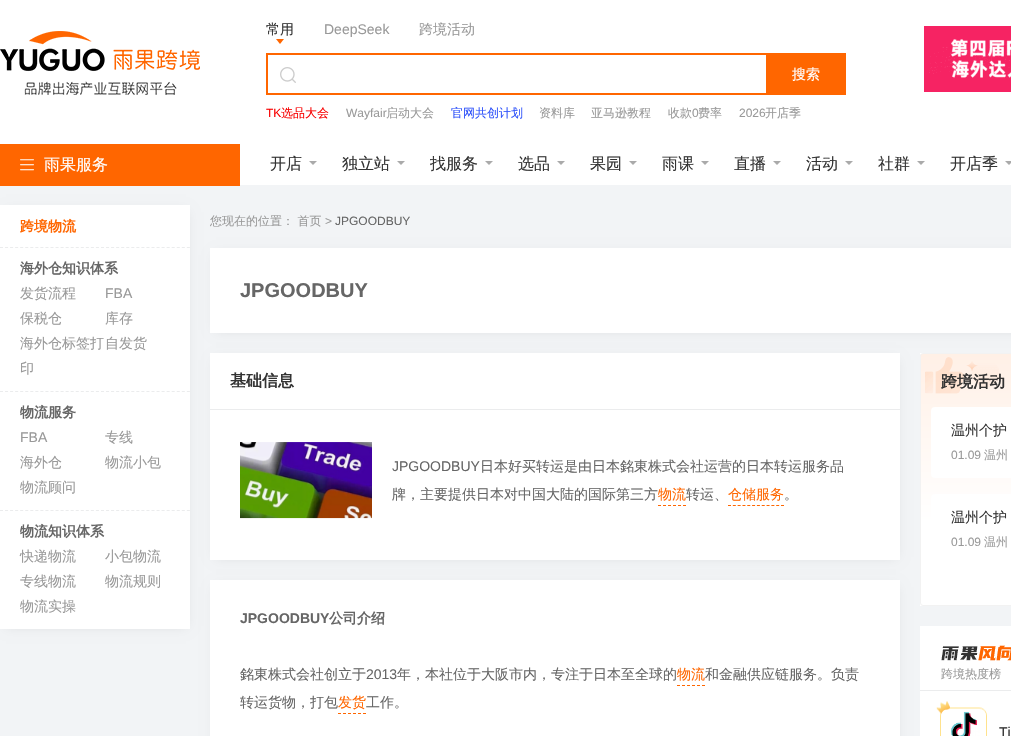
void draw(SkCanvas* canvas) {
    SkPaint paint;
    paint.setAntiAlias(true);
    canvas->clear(0xFFF2F4F6);
    paint.setColor(0xFFFFFFFF);
    canvas->drawRect(SkRect::MakeXYWH(0, 0, 1011, 185), paint);
    canvas->drawImageRect(SkImages::DeferredFromEncodedData(SkData::MakeFromFileName("img1.png")), SkRect::MakeXYWH(0, 31, 200, 64), SkSamplingOptions());
    SkFont font1(fontMgr->matchFamilyStyle("WenQuanYi Zen Hei", SkFontStyle(500, SkFontStyle::kNormal_Width, SkFontStyle::kUpright_Slant)), 14);
    font1.setSubpixel(true);
    paint.setColor(0xFF333333);
    canvas->drawString("常用", 266, 34, font1, paint);
    paint.setColor(0xFFFF6600);
    canvas->drawPath(SkPathBuilder().moveTo(276, 39).lineTo(284, 39).lineTo(280, 44).close().detach(), paint);
    SkFont font2(fontMgr->matchFamilyStyle("Liberation Sans", SkFontStyle::Normal()), 14);
    font2.setSubpixel(true);
    paint.setColor(0xFF999999);
    canvas->drawString("DeepSeek", 324, 34, font2, paint);
    canvas->drawString("跨境活动", 419, 34, font1, paint);
    paint.setColor(0xFFFF6600);
    canvas->drawRect(SkRect::MakeXYWH(266, 53, 500, 2), paint);
    canvas->drawRect(SkRect::MakeXYWH(266, 93, 500, 2), paint);
    canvas->drawRect(SkRect::MakeXYWH(266, 53, 2, 42), paint);
    canvas->drawImageRect(SkImages::DeferredFromEncodedData(SkData::MakeFromFileName("img2.png")), SkRect::MakeXYWH(280, 67, 16, 16), SkSamplingOptions());
    canvas->drawRect(SkRect::MakeXYWH(766, 53, 80, 42), paint);
    paint.setColor(0xFFFFFFFF);
    canvas->drawString("搜索", 792, 79, font1, paint);
    SkFont font3(fontMgr->matchFamilyStyle("Liberation Sans", SkFontStyle::Normal()), 12);
    font3.setSubpixel(true);
    paint.setColor(0xFFF80000);
    canvas->drawString("TK", 266, 117, font3, paint);
    SkFont font4(fontMgr->matchFamilyStyle("WenQuanYi Zen Hei", SkFontStyle(500, SkFontStyle::kNormal_Width, SkFontStyle::kUpright_Slant)), 12);
    font4.setSubpixel(true);
    canvas->drawString("选品大会", 281, 117, font4, paint);
    paint.setColor(0xFF999999);
    canvas->drawString("Wayfair", 346, 117, font3, paint);
    canvas->drawString("启动大会", 386, 117, font4, paint);
    paint.setColor(0xFF2C50FA);
    canvas->drawString("官网共创计划", 451, 117, font4, paint);
    paint.setColor(0xFF999999);
    canvas->drawString("资料库", 539, 117, font4, paint);
    canvas->drawString("亚马逊教程", 591, 117, font4, paint);
    canvas->drawString("收款", 668, 117, font4, paint);
    canvas->drawString("0", 692, 117, font3, paint);
    canvas->drawString("费率", 698, 117, font4, paint);
    canvas->drawString("2026", 739, 117, font3, paint);
    canvas->drawString("开店季", 765, 117, font4, paint);
    canvas->drawImageRect(SkImages::DeferredFromEncodedData(SkData::MakeFromFileName("img3.png")), SkRect::MakeXYWH(924, 26, 87, 66), SkSamplingOptions());
    paint.setColor(0xFFFF6600);
    canvas->drawRect(SkRect::MakeXYWH(0, 144, 240, 42), paint);
    canvas->drawImageRect(SkImages::DeferredFromEncodedData(SkData::MakeFromFileName("img4.png")), SkRect::MakeXYWH(20, 159, 14, 12), SkSamplingOptions());
    SkFont font5(fontMgr->matchFamilyStyle("WenQuanYi Zen Hei", SkFontStyle(500, SkFontStyle::kNormal_Width, SkFontStyle::kUpright_Slant)), 16);
    font5.setSubpixel(true);
    paint.setColor(0xFFFFFFFF);
    canvas->drawString("雨果服务", 44, 170, font5, paint);
    paint.setColor(0xFF333333);
    canvas->drawString("开店", 270, 169, font5, paint);
    paint.setColor(0xFFAAAAAA);
    canvas->drawPath(SkPathBuilder().moveTo(309, 161).lineTo(317, 161).lineTo(313, 165).close().detach(), paint);
    paint.setColor(0xFF333333);
    canvas->drawString("独立站", 342, 169, font5, paint);
    paint.setColor(0xFFAAAAAA);
    canvas->drawPath(SkPathBuilder().moveTo(397, 161).lineTo(405, 161).lineTo(401, 165).close().detach(), paint);
    paint.setColor(0xFF333333);
    canvas->drawString("找服务", 430, 169, font5, paint);
    paint.setColor(0xFFAAAAAA);
    canvas->drawPath(SkPathBuilder().moveTo(485, 161).lineTo(493, 161).lineTo(489, 165).close().detach(), paint);
    paint.setColor(0xFF333333);
    canvas->drawString("选品", 518, 169, font5, paint);
    paint.setColor(0xFFAAAAAA);
    canvas->drawPath(SkPathBuilder().moveTo(557, 161).lineTo(565, 161).lineTo(561, 165).close().detach(), paint);
    paint.setColor(0xFF333333);
    canvas->drawString("果园", 590, 169, font5, paint);
    paint.setColor(0xFFAAAAAA);
    canvas->drawPath(SkPathBuilder().moveTo(629, 161).lineTo(637, 161).lineTo(633, 165).close().detach(), paint);
    paint.setColor(0xFF333333);
    canvas->drawString("雨课", 662, 169, font5, paint);
    paint.setColor(0xFFAAAAAA);
    canvas->drawPath(SkPathBuilder().moveTo(701, 161).lineTo(709, 161).lineTo(705, 165).close().detach(), paint);
    paint.setColor(0xFF333333);
    canvas->drawString("直播", 734, 169, font5, paint);
    paint.setColor(0xFFAAAAAA);
    canvas->drawPath(SkPathBuilder().moveTo(773, 161).lineTo(781, 161).lineTo(777, 165).close().detach(), paint);
    paint.setColor(0xFF333333);
    canvas->drawString("活动", 806, 169, font5, paint);
    paint.setColor(0xFFAAAAAA);
    canvas->drawPath(SkPathBuilder().moveTo(845, 161).lineTo(853, 161).lineTo(849, 165).close().detach(), paint);
    paint.setColor(0xFF333333);
    canvas->drawString("社群", 878, 169, font5, paint);
    paint.setColor(0xFFAAAAAA);
    canvas->drawPath(SkPathBuilder().moveTo(917, 161).lineTo(925, 161).lineTo(921, 165).close().detach(), paint);
    paint.setColor(0xFF333333);
    canvas->drawString("开店季", 950, 169, font5, paint);
    paint.setColor(0xFFAAAAAA);
    canvas->drawPath(SkPathBuilder().moveTo(1005, 161).lineTo(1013, 161).lineTo(1009, 165).close().detach(), paint);
    paint.setColor(0x1A000000);
    paint.setMaskFilter(SkMaskFilter::MakeBlur(kNormal_SkBlurStyle, 6));
    canvas->drawRect(SkRect::MakeXYWH(6, 212, 180, 414), paint);
    paint.setMaskFilter(nullptr);
    paint.setColor(0xFFFFFFFF);
    canvas->drawRect(SkRect::MakeXYWH(0, 205, 190, 424), paint);
    SkFont font6(fontMgr->matchFamilyStyle("WenQuanYi Zen Hei", SkFontStyle::Bold()), 14);
    font6.setSubpixel(true);
    paint.setColor(0xFFFF6600);
    canvas->drawString("跨境物流", 20, 231, font6, paint);
    paint.setStyle(SkPaint::kStroke_Style);
    paint.setStrokeWidth(1);
    paint.setColor(0xFFEBECED);
    paint.setPathEffect(SkDashPathEffect::Make({{3, 2.05f}}, 0));
    canvas->drawPath(SkPathBuilder().moveTo(0, 247.5f).lineTo(190, 247.5f).detach(), paint);
    paint.setPathEffect(nullptr);
    paint.setStyle(SkPaint::kFill_Style);
    paint.setColor(0xFF666666);
    canvas->drawString("海外仓知识体系", 20, 273, font6, paint);
    paint.setColor(0xFF999999);
    canvas->drawString("发货流程", 20, 298, font1, paint);
    canvas->drawString("FBA", 105, 298, font2, paint);
    canvas->drawString("保税仓", 20, 323, font1, paint);
    canvas->drawString("库存", 105, 323, font1, paint);
    canvas->drawString("海外仓标签打", 20, 348, font1, paint);
    canvas->drawString("印", 20, 373, font1, paint);
    canvas->drawString("自发货", 105, 348, font1, paint);
    paint.setStyle(SkPaint::kStroke_Style);
    paint.setColor(0xFFEBECED);
    paint.setPathEffect(SkDashPathEffect::Make({{3, 2.05f}}, 0));
    canvas->drawPath(SkPathBuilder().moveTo(0, 391.5f).lineTo(190, 391.5f).detach(), paint);
    paint.setPathEffect(nullptr);
    paint.setStyle(SkPaint::kFill_Style);
    paint.setColor(0xFF666666);
    canvas->drawString("物流服务", 20, 417, font6, paint);
    paint.setColor(0xFF999999);
    canvas->drawString("FBA", 20, 442, font2, paint);
    canvas->drawString("专线", 105, 442, font1, paint);
    canvas->drawString("海外仓", 20, 467, font1, paint);
    canvas->drawString("物流小包", 105, 467, font1, paint);
    canvas->drawString("物流顾问", 20, 492, font1, paint);
    paint.setStyle(SkPaint::kStroke_Style);
    paint.setColor(0xFFEBECED);
    paint.setPathEffect(SkDashPathEffect::Make({{3, 2.05f}}, 0));
    canvas->drawPath(SkPathBuilder().moveTo(0, 510.5f).lineTo(190, 510.5f).detach(), paint);
    paint.setPathEffect(nullptr);
    paint.setStyle(SkPaint::kFill_Style);
    paint.setColor(0xFF666666);
    canvas->drawString("物流知识体系", 20, 536, font6, paint);
    paint.setColor(0xFF999999);
    canvas->drawString("快递物流", 20, 561, font1, paint);
    canvas->drawString("小包物流", 105, 561, font1, paint);
    canvas->drawString("专线物流", 20, 586, font1, paint);
    canvas->drawString("物流规则", 105, 586, font1, paint);
    canvas->drawString("物流实操", 20, 611, font1, paint);
    canvas->drawString("您现在的位置： 首页", 210, 225, font4, paint);
    canvas->drawString(">", 325, 225, font3, paint);
    paint.setColor(0xFF666666);
    canvas->drawString("JPGOODBUY", 335, 225, font3, paint);
    paint.setColor(0x1A000000);
    paint.setMaskFilter(SkMaskFilter::MakeBlur(kNormal_SkBlurStyle, 6));
    canvas->drawRect(SkRect::MakeXYWH(216, 255, 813, 75), paint);
    paint.setMaskFilter(nullptr);
    paint.setColor(0xFFFFFFFF);
    canvas->drawRect(SkRect::MakeXYWH(210, 248, 801, 85), paint);
    SkFont font7(fontMgr->matchFamilyStyle("Liberation Sans", SkFontStyle::Bold()), 20);
    font7.setSubpixel(true);
    paint.setColor(0xFF666666);
    canvas->drawString("JPGOODBUY", 240, 297, font7, paint);
    paint.setColor(0x1A000000);
    paint.setMaskFilter(SkMaskFilter::MakeBlur(kNormal_SkBlurStyle, 6));
    canvas->drawRect(SkRect::MakeXYWH(216, 360, 680, 197), paint);
    paint.setMaskFilter(nullptr);
    paint.setColor(0xFFFFFFFF);
    canvas->drawRect(SkRect::MakeXYWH(210, 353, 690, 207), paint);
    paint.setColor(0xFFEBECED);
    canvas->drawRect(SkRect::MakeXYWH(210, 409, 690, 1), paint);
    SkFont font8(fontMgr->matchFamilyStyle("WenQuanYi Zen Hei", SkFontStyle::Bold()), 16);
    font8.setSubpixel(true);
    paint.setColor(0xFF333333);
    canvas->drawString("基础信息", 230, 386, font8, paint);
    canvas->drawImageRect(SkImages::DeferredFromEncodedData(SkData::MakeFromFileName("img5.png")), SkRect::MakeXYWH(240, 442, 132, 77), SkSamplingOptions());
    paint.setColor(0xFF666666);
    canvas->drawString("JPGOODBUY", 392, 471, font2, paint);
    canvas->drawString("日本好买转运是由日本銘東株式会社运营的日本转运服务品", 480, 471, font1, paint);
    canvas->drawString("牌，主要提供日本对中国大陆的国际第三方", 392, 499, font1, paint);
    paint.setColor(0xFFFF6600);
    canvas->drawString("物流", 658, 499, font1, paint);
    paint.setStyle(SkPaint::kStroke_Style);
    paint.setPathEffect(SkDashPathEffect::Make({{3, 2}}, 0));
    canvas->drawPath(SkPathBuilder().moveTo(658, 505.5f).lineTo(686, 505.5f).detach(), paint);
    paint.setPathEffect(nullptr);
    paint.setStyle(SkPaint::kFill_Style);
    paint.setColor(0xFF666666);
    canvas->drawString("转运、", 686, 499, font1, paint);
    paint.setColor(0xFFFF6600);
    canvas->drawString("仓储服务", 728, 499, font1, paint);
    paint.setStyle(SkPaint::kStroke_Style);
    paint.setPathEffect(SkDashPathEffect::Make({{3, 1.82f}}, 0));
    canvas->drawPath(SkPathBuilder().moveTo(728, 505.5f).lineTo(784, 505.5f).detach(), paint);
    paint.setPathEffect(nullptr);
    paint.setStyle(SkPaint::kFill_Style);
    paint.setColor(0xFF666666);
    canvas->drawString("。", 784, 499, font1, paint);
    paint.setColor(0x1A000000);
    paint.setMaskFilter(SkMaskFilter::MakeBlur(kNormal_SkBlurStyle, 6));
    canvas->drawRect(SkRect::MakeXYWH(216, 587, 680, 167), paint);
    paint.setMaskFilter(nullptr);
    paint.setColor(0xFFFFFFFF);
    canvas->drawRect(SkRect::MakeXYWH(210, 580, 690, 156), paint);
    SkFont font9(fontMgr->matchFamilyStyle("Liberation Sans", SkFontStyle::Bold()), 14);
    font9.setSubpixel(true);
    paint.setColor(0xFF666666);
    canvas->drawString("JPGOODBUY", 240, 623, font9, paint);
    canvas->drawString("公司介绍", 329, 623, font6, paint);
    canvas->drawString("銘東株式会社创立于", 240, 679, font1, paint);
    canvas->drawString("2013", 366, 679, font2, paint);
    canvas->drawString("年，本社位于大阪市内，专注于日本至全球的", 397, 679, font1, paint);
    paint.setColor(0xFFFF6600);
    canvas->drawString("物流", 677, 679, font1, paint);
    paint.setStyle(SkPaint::kStroke_Style);
    paint.setPathEffect(SkDashPathEffect::Make({{3, 2}}, 0));
    canvas->drawPath(SkPathBuilder().moveTo(677, 685.5f).lineTo(705, 685.5f).detach(), paint);
    paint.setPathEffect(nullptr);
    paint.setStyle(SkPaint::kFill_Style);
    paint.setColor(0xFF666666);
    canvas->drawString("和金融供应链服务。负责", 705, 679, font1, paint);
    canvas->drawString("转运货物，打包", 240, 707, font1, paint);
    paint.setColor(0xFFFF6600);
    canvas->drawString("发货", 338, 707, font1, paint);
    paint.setStyle(SkPaint::kStroke_Style);
    paint.setPathEffect(SkDashPathEffect::Make({{3, 2}}, 0));
    canvas->drawPath(SkPathBuilder().moveTo(338, 713.5f).lineTo(366, 713.5f).detach(), paint);
    paint.setPathEffect(nullptr);
    paint.setStyle(SkPaint::kFill_Style);
    paint.setColor(0xFF666666);
    canvas->drawString("工作。", 366, 707, font1, paint);
    paint.setColor(0xFFFFFFFF);
    canvas->drawRect(SkRect::MakeXYWH(920, 353, 3, 253), paint);
    canvas->save();
    canvas->clipPath(SkPathBuilder().moveTo(923, 353).lineTo(1197, 353).cubicTo(1198.5f, 353, 1200, 354.5f, 1200, 356).lineTo(1200, 603).cubicTo(1200, 604.5f, 1198.5f, 606, 1197, 606).lineTo(923, 606).cubicTo(921.5f, 606, 920, 604.5f, 920, 603).lineTo(920, 356).cubicTo(920, 354.5f, 921.5f, 353, 923, 353).close().detach(), true);
    {
        const SkColor colors[] = {0xFFFFF0E6, 0xFFFFFFFF};
        const float stops[] = {0, 0.67f};
        const SkPoint ends[] = {{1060, 354}, {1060, 605}};
        paint.setShader(SkGradientShader::MakeLinear(ends, colors, stops, 2, SkTileMode::kClamp));
        paint.setAlpha(255);
    }
    canvas->drawRect(SkRect::MakeXYWH(920, 354, 91, 251), paint);
    canvas->restore();
    paint.setStyle(SkPaint::kStroke_Style);
    paint.setShader(nullptr);
    paint.setColor(0xFFF2F2F2);
    canvas->drawRoundRect(SkRect::MakeXYWH(920.5f, 353.5f, 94, 252), 2.5f, 2.5f, paint);
    canvas->drawImageRect(SkImages::DeferredFromEncodedData(SkData::MakeFromFileName("img6.png")), SkRect::MakeXYWH(925, 357, 75, 37), SkSamplingOptions());
    paint.setStyle(SkPaint::kFill_Style);
    paint.setColor(0xFF333333);
    canvas->drawString("跨境活动", 941, 387, font8, paint);
    paint.setColor(0xFFFFFFFF);
    canvas->drawRoundRect(SkRect::MakeXYWH(931, 407, 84, 71), 4, 4, paint);
    paint.setColor(0xFF333333);
    canvas->drawString("温州个护", 951, 435, font1, paint);
    paint.setColor(0xFF999999);
    canvas->drawString("01.09", 951, 459, font3, paint);
    canvas->drawString("温州", 984, 459, font4, paint);
    paint.setColor(0xFFFFFFFF);
    canvas->drawRoundRect(SkRect::MakeXYWH(931, 494, 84, 71), 4, 4, paint);
    paint.setColor(0xFF333333);
    canvas->drawString("温州个护", 951, 522, font1, paint);
    paint.setColor(0xFF999999);
    canvas->drawString("01.09", 951, 546, font3, paint);
    canvas->drawString("温州", 984, 546, font4, paint);
    paint.setColor(0xFFFFFFFF);
    canvas->drawRect(SkRect::MakeXYWH(920, 626, 91, 110), paint);
    paint.setColor(0xFFEBECED);
    canvas->drawRect(SkRect::MakeXYWH(920, 690, 91, 1), paint);
    canvas->drawImageRect(SkImages::DeferredFromEncodedData(SkData::MakeFromFileName("img7.png")), SkRect::MakeXYWH(941, 645, 70, 16), SkSamplingOptions());
    paint.setColor(0xFF999999);
    canvas->drawString("跨境热度榜", 941, 678, font4, paint);
    canvas->drawImageRect(SkImages::DeferredFromEncodedData(SkData::MakeFromFileName("img8.png")), SkRect::MakeXYWH(936, 701, 51, 35), SkSamplingOptions());
    canvas->drawImageRect(SkImages::DeferredFromEncodedData(SkData::MakeFromFileName("img9.png")), SkRect::MakeXYWH(941, 709, 45, 27), SkSamplingOptions());
    paint.setColor(0xFF333333);
    canvas->drawString("Ti", 999, 737, font2, paint);
}
